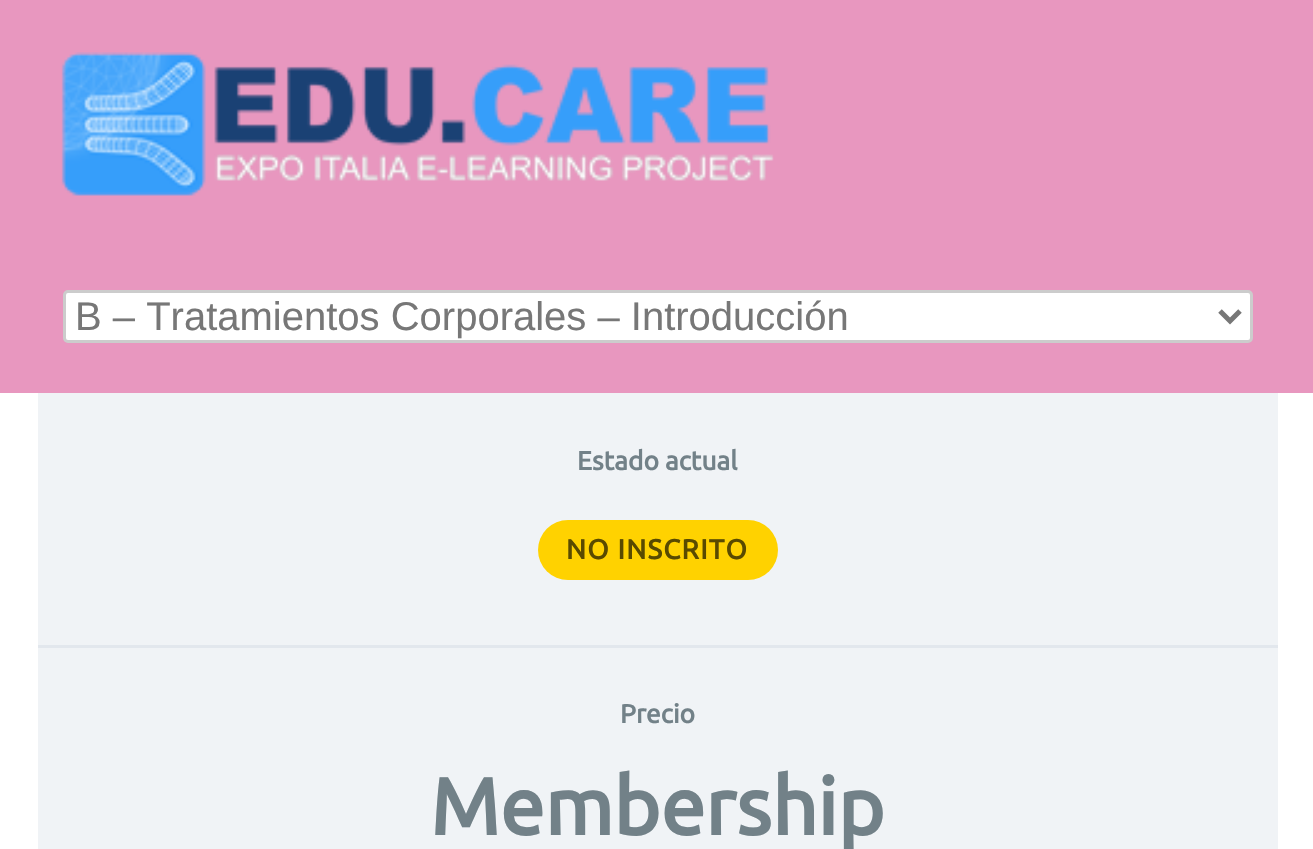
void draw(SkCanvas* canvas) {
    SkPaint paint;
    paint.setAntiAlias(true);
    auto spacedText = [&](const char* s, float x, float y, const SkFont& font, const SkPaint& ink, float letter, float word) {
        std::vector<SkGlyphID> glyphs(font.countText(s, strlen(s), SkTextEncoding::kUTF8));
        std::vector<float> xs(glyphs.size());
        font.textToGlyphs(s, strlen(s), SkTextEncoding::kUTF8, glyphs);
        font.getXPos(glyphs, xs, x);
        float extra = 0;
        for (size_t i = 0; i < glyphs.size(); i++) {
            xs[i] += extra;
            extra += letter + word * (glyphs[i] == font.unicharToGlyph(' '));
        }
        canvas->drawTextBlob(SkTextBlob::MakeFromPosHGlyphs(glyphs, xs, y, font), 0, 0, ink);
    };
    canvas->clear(0xFFFFFFFF);
    paint.setColor(0xFFE897BF);
    canvas->drawRect(SkRect::MakeXYWH(0, 0, 1313, 393), paint);
    canvas->drawImageRect(SkImages::DeferredFromEncodedData(SkData::MakeFromFileName("img1.png")), SkRect::MakeXYWH(61, 52, 713, 144), SkSamplingOptions());
    paint.setColor(0xFFFFFFFF);
    canvas->drawRoundRect(SkRect::MakeXYWH(64.5f, 291.5f, 1187, 50), 3.5f, 3.5f, paint);
    paint.setStyle(SkPaint::kStroke_Style);
    paint.setStrokeWidth(3);
    paint.setColor(0xFFCCCCCC);
    canvas->drawRoundRect(SkRect::MakeXYWH(64.5f, 291.5f, 1187, 50), 3.5f, 3.5f, paint);
    paint.setStrokeWidth(5);
    paint.setColor(0xFF777777);
    canvas->drawPath(SkPathBuilder().moveTo(1220, 311).lineTo(1230, 321).lineTo(1240, 311).detach(), paint);
    SkFont font1(fontMgr->matchFamilyStyle("Liberation Sans", SkFontStyle::Normal()), 40);
    font1.setSubpixel(true);
    paint.setStyle(SkPaint::kFill_Style);
    canvas->drawString("B – Tratamientos Corporales – Introducción", 75, 330, font1, paint);
    paint.setColor(0xFFF0F3F6);
    canvas->drawRect(SkRect::MakeXYWH(38, 393, 1240, 456), paint);
    paint.setColor(0xFFE2E7ED);
    canvas->drawRect(SkRect::MakeXYWH(38, 645, 1240, 3), paint);
    SkFont font2(fontMgr->matchFamilyStyle("Ubuntu", SkFontStyle::Bold()), 26.25f);
    font2.setSubpixel(true);
    paint.setColor(0xFF728188);
    canvas->drawString("Estado actual", 577, 470, font2, paint);
    paint.setColor(0xFFFFD200);
    canvas->drawRoundRect(SkRect::MakeXYWH(538, 520, 240, 60), 30, 30, paint);
    SkFont font3(fontMgr->matchFamilyStyle("Ubuntu", SkFontStyle::Bold()), 27.5f);
    font3.setSubpixel(true);
    paint.setColor(0xFF594A00);
    spacedText("NO INSCRITO", 566, 559, font3, paint, 1.25f, 0);
    paint.setColor(0xFF728188);
    canvas->drawString("Precio", 620, 723, font2, paint);
    SkFont font4(fontMgr->matchFamilyStyle("Ubuntu", SkFontStyle::Bold()), 80);
    font4.setSubpixel(true);
    canvas->drawString("Membership", 430, 835, font4, paint);
}
